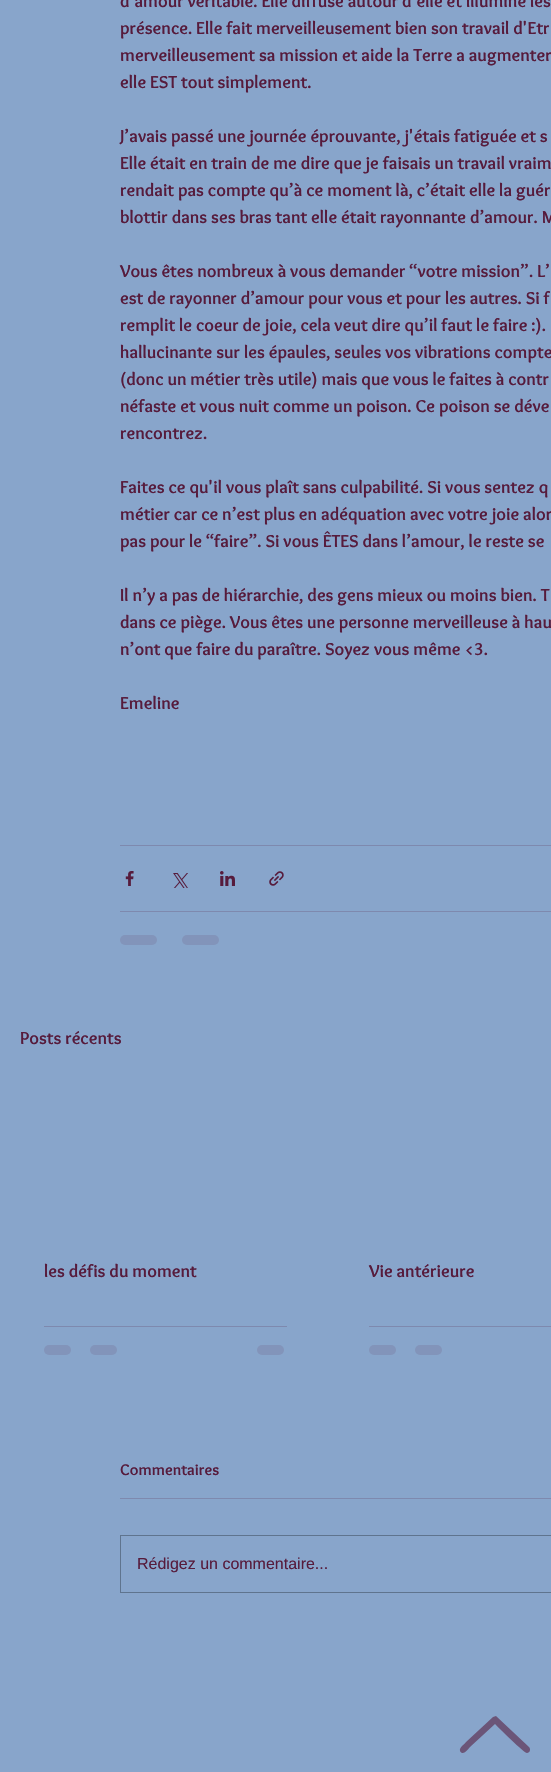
void draw(SkCanvas* canvas) {
    SkPaint paint;
    paint.setAntiAlias(true);
    canvas->clear(0xFF88A5CB);
    SkFont font1(fontMgr->matchFamilyStyle("Overlock", SkFontStyle::Bold()), 18);
    font1.setSubpixel(true);
    paint.setColor(0xFF561B3C);
    canvas->drawString("d’amour véritable. Elle diffuse autour d’elle et illumine les", 120, 7, font1, paint);
    canvas->drawString("présence. Elle fait merveilleusement bien son travail d'Etr", 120, 34, font1, paint);
    canvas->drawString("merveilleusement sa mission et aide la Terre a augmenter", 120, 61, font1, paint);
    canvas->drawString("elle EST tout simplement.", 120, 88, font1, paint);
    canvas->drawString("J’avais passé une journée éprouvante, j'étais fatiguée et s", 120, 142, font1, paint);
    canvas->drawString("Elle était en train de me dire que je faisais un travail vraim", 120, 169, font1, paint);
    canvas->drawString("rendait pas compte qu’à ce moment là, c’était elle la guér", 120, 196, font1, paint);
    canvas->drawString("blottir dans ses bras tant elle était rayonnante d’amour. M", 120, 223, font1, paint);
    canvas->drawString("Vous êtes nombreux à vous demander “votre mission”. L’", 120, 277, font1, paint);
    canvas->drawString("est de rayonner d’amour pour vous et pour les autres. Si f", 120, 304, font1, paint);
    canvas->drawString("remplit le coeur de joie, cela veut dire qu’il faut le faire :).", 120, 331, font1, paint);
    canvas->drawString("hallucinante sur les épaules, seules vos vibrations compte", 120, 358, font1, paint);
    canvas->drawString("(donc un métier très utile) mais que vous le faites à contr", 120, 385, font1, paint);
    canvas->drawString("néfaste et vous nuit comme un poison. Ce poison se déve", 120, 412, font1, paint);
    canvas->drawString("rencontrez.", 120, 439, font1, paint);
    canvas->drawString("Faites ce qu'il vous plaît sans culpabilité. Si vous sentez q", 120, 493, font1, paint);
    canvas->drawString("métier car ce n’est plus en adéquation avec votre joie alor", 120, 520, font1, paint);
    canvas->drawString("pas pour le “faire”. Si vous ÊTES dans l’amour, le reste se", 120, 547, font1, paint);
    canvas->drawString("Il n’y a pas de hiérarchie, des gens mieux ou moins bien. T", 120, 601, font1, paint);
    canvas->drawString("dans ce piège. Vous êtes une personne merveilleuse à hau", 120, 628, font1, paint);
    canvas->drawString("n’ont que faire du paraître. Soyez vous même <3.", 120, 655, font1, paint);
    canvas->drawString("Emeline", 120, 709, font1, paint);
    paint.setColor(0xFF7E89AE);
    canvas->drawRect(SkRect::MakeXYWH(120, 845, 431, 1), paint);
    canvas->drawImageRect(SkImages::DeferredFromEncodedData(SkData::MakeFromFileName("img1.png")), SkRect::MakeXYWH(125, 871, 9, 15), SkSamplingOptions());
    canvas->drawImageRect(SkImages::DeferredFromEncodedData(SkData::MakeFromFileName("img2.png")), SkRect::MakeXYWH(173, 873, 15, 15), SkSamplingOptions());
    canvas->drawImageRect(SkImages::DeferredFromEncodedData(SkData::MakeFromFileName("img3.png")), SkRect::MakeXYWH(220, 871, 15, 15), SkSamplingOptions());
    canvas->drawImageRect(SkImages::DeferredFromEncodedData(SkData::MakeFromFileName("img4.png")), SkRect::MakeXYWH(269, 871, 15, 15), SkSamplingOptions());
    canvas->drawRect(SkRect::MakeXYWH(120, 911, 431, 1), paint);
    paint.setColor(0xFF8294BA);
    canvas->drawRoundRect(SkRect::MakeXYWH(120, 935, 37, 10), 5, 5, paint);
    canvas->drawRoundRect(SkRect::MakeXYWH(182, 935, 37, 10), 5, 5, paint);
    paint.setColor(0xFF561B3C);
    canvas->drawString("Posts récents", 20, 1044, font1, paint);
    canvas->drawString("les défis du moment", 44, 1277, font1, paint);
    paint.setColor(0xFF7E89AE);
    canvas->drawRect(SkRect::MakeXYWH(44, 1326, 243, 1), paint);
    paint.setColor(0xFF8294BA);
    canvas->drawRoundRect(SkRect::MakeXYWH(44, 1345, 27, 10), 5, 5, paint);
    canvas->drawRoundRect(SkRect::MakeXYWH(90, 1345, 27, 10), 5, 5, paint);
    canvas->drawRoundRect(SkRect::MakeXYWH(257, 1345, 27, 10), 5, 5, paint);
    paint.setColor(0xFF561B3C);
    canvas->drawString("Vie antérieure", 369, 1277, font1, paint);
    paint.setColor(0xFF7E89AE);
    canvas->drawRect(SkRect::MakeXYWH(369, 1326, 182, 1), paint);
    paint.setColor(0xFF8294BA);
    canvas->drawRoundRect(SkRect::MakeXYWH(369, 1345, 27, 10), 5, 5, paint);
    canvas->drawRoundRect(SkRect::MakeXYWH(415, 1345, 27, 10), 5, 5, paint);
    SkFont font2(fontMgr->matchFamilyStyle("Overlock", SkFontStyle::Bold()), 16);
    font2.setSubpixel(true);
    paint.setColor(0xFF561B3C);
    canvas->drawString("Commentaires", 120, 1475, font2, paint);
    paint.setColor(0xFF7E89AE);
    canvas->drawRect(SkRect::MakeXYWH(120, 1498, 431, 1), paint);
    paint.setStyle(SkPaint::kStroke_Style);
    paint.setStrokeWidth(1);
    paint.setColor(0xFF5F748E);
    canvas->drawRect(SkRect::MakeXYWH(120.5f, 1535.5f, 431, 57), paint);
    SkFont font3(fontMgr->matchFamilyStyle("Liberation Sans", SkFontStyle::Normal()), 16);
    font3.setSubpixel(true);
    paint.setStyle(SkPaint::kFill_Style);
    paint.setColor(0xFF561B3C);
    canvas->drawString("Rédigez un commentaire...", 137, 1569, font3, paint);
    paint.setColor(0xFF6B5578);
    canvas->drawPath(SkPathBuilder().moveTo(527, 1753).cubicTo(524, 1753, 499, 1728, 495, 1724).lineTo(470, 1747).cubicTo(469, 1748, 463, 1757, 460, 1751).cubicTo(459, 1747, 465, 1744, 466, 1742).lineTo(493, 1717).lineTo(496, 1716).lineTo(529, 1747).cubicTo(531, 1749, 530, 1753, 527, 1753).close().detach(), paint);
}
